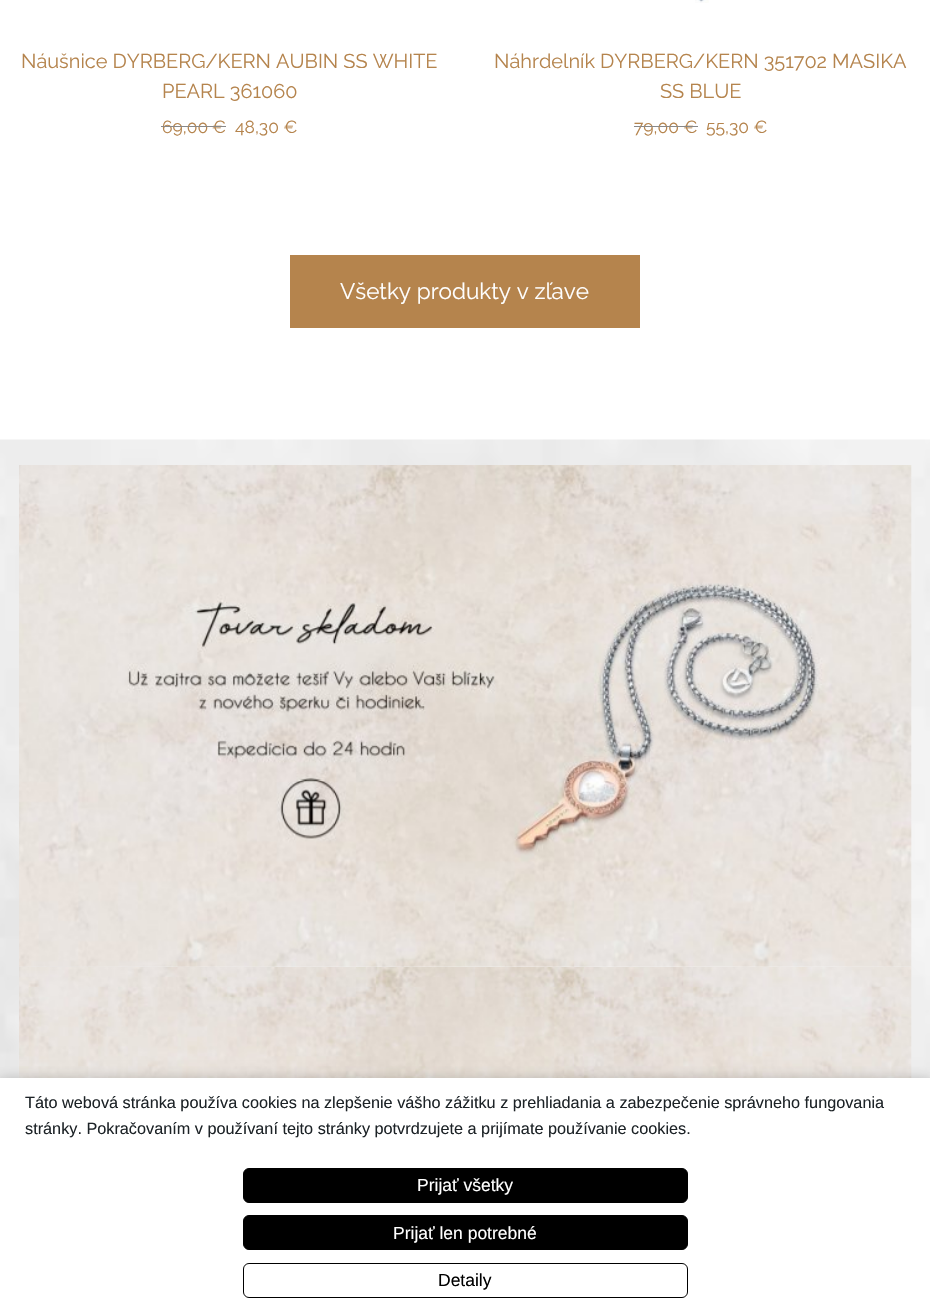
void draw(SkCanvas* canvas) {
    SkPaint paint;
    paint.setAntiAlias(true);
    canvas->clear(0xFFFFFFFF);
    SkFont font1(fontMgr->matchFamilyStyle("Raleway", SkFontStyle::Normal()), 19.95f);
    font1.setSubpixel(true);
    paint.setColor(0xFFB5844D);
    canvas->drawString("Náušnice DYRBERG/KERN AUBIN SS WHITE", 21, 68, font1, paint);
    canvas->drawString("PEARL 361060", 162, 98, font1, paint);
    SkFont font2(fontMgr->matchFamilyStyle("Raleway", SkFontStyle::Normal()), 17.5f);
    font2.setSubpixel(true);
    canvas->drawString("69,00", 162, 133, font2, paint);
    paint.setColor(0xFF888888);
    canvas->drawRect(SkRect::MakeXYWH(161, 126, 52, 1), paint);
    paint.setColor(0xFFB5844D);
    canvas->drawString("€", 212, 133, font2, paint);
    paint.setColor(0xFF888888);
    canvas->drawRect(SkRect::MakeXYWH(213, 126, 13, 1), paint);
    paint.setColor(0xFFB5844D);
    canvas->drawString("48,30 €", 235, 133, font2, paint);
    canvas->drawImageRect(SkImages::DeferredFromEncodedData(SkData::MakeFromFileName("img1.png")), SkRect::MakeXYWH(695, 0, 14, 3), SkSamplingOptions());
    canvas->drawString("Náhrdelník DYRBERG/KERN 351702 MASIKA", 494, 68, font1, paint);
    canvas->drawString("SS BLUE", 660, 98, font1, paint);
    canvas->drawString("79,00 €", 634, 133, font2, paint);
    paint.setColor(0xFF888888);
    canvas->drawRect(SkRect::MakeXYWH(634, 126, 64, 1), paint);
    paint.setColor(0xFFB5844D);
    canvas->drawString("55,30 €", 706, 133, font2, paint);
    canvas->drawRect(SkRect::MakeXYWH(290, 255, 350, 73), paint);
    SkFont font3(fontMgr->matchFamilyStyle("Raleway", SkFontStyle::Normal()), 22.5f);
    font3.setSubpixel(true);
    paint.setColor(0xFFFFFFFF);
    canvas->drawString("Všetky produkty v zľave", 340, 299, font3, paint);
    canvas->drawImageRect(SkImages::DeferredFromEncodedData(SkData::MakeFromFileName("img2.png")), SkRect::MakeXYWH(0, 439, 930, 639), SkSamplingOptions());
    canvas->drawImageRect(SkImages::DeferredFromEncodedData(SkData::MakeFromFileName("img3.png")), SkRect::MakeXYWH(19, 465, 893, 502), SkSamplingOptions());
    canvas->drawImageRect(SkImages::DeferredFromEncodedData(SkData::MakeFromFileName("img4.png")), SkRect::MakeXYWH(19, 967, 893, 111), SkSamplingOptions());
    paint.setColor(0x33000000);
    paint.setMaskFilter(SkMaskFilter::MakeBlur(kNormal_SkBlurStyle, 6));
    canvas->drawRect(SkRect::MakeXYWH(0, 1078, 930, 232), paint);
    paint.setMaskFilter(nullptr);
    paint.setColor(0xFFFFFFFF);
    canvas->drawRect(SkRect::MakeXYWH(0, 1078, 930, 232), paint);
    SkFont font4(fontMgr->matchFamilyStyle("Liberation Sans", SkFontStyle::Normal()), 16.25f);
    font4.setSubpixel(true);
    paint.setColor(0xFF1D2327);
    canvas->drawString("Táto webová stránka používa cookies na zlepšenie vášho zážitku z prehliadania a zabezpečenie správneho fungovania", 25, 1108, font4, paint);
    canvas->drawString("stránky. Pokračovaním v používaní tejto stránky potvrdzujete a prijímate používanie cookies.", 25, 1134, font4, paint);
    paint.setColor(0xFF000000);
    canvas->drawRoundRect(SkRect::MakeXYWH(243.5f, 1168.5f, 444, 34), 5.5f, 5.5f, paint);
    paint.setStyle(SkPaint::kStroke_Style);
    paint.setStrokeWidth(1);
    canvas->drawRoundRect(SkRect::MakeXYWH(243.5f, 1168.5f, 444, 34), 5.5f, 5.5f, paint);
    SkFont font5(fontMgr->matchFamilyStyle("Liberation Sans", SkFontStyle::Normal()), 17.5f);
    font5.setSubpixel(true);
    paint.setStyle(SkPaint::kFill_Style);
    paint.setColor(0xFFFFFFFF);
    canvas->drawString("Prijať všetky", 417, 1191, font5, paint);
    paint.setColor(0xFF000000);
    canvas->drawRoundRect(SkRect::MakeXYWH(243.5f, 1215.5f, 444, 34), 5.5f, 5.5f, paint);
    paint.setStyle(SkPaint::kStroke_Style);
    canvas->drawRoundRect(SkRect::MakeXYWH(243.5f, 1215.5f, 444, 34), 5.5f, 5.5f, paint);
    paint.setStyle(SkPaint::kFill_Style);
    paint.setColor(0xFFFFFFFF);
    canvas->drawString("Prijať len potrebné", 393, 1239, font5, paint);
    paint.setStyle(SkPaint::kStroke_Style);
    paint.setColor(0xFF000000);
    canvas->drawRoundRect(SkRect::MakeXYWH(243.5f, 1263.5f, 444, 34), 5.5f, 5.5f, paint);
    paint.setStyle(SkPaint::kFill_Style);
    canvas->drawString("Detaily", 438, 1286, font5, paint);
}
